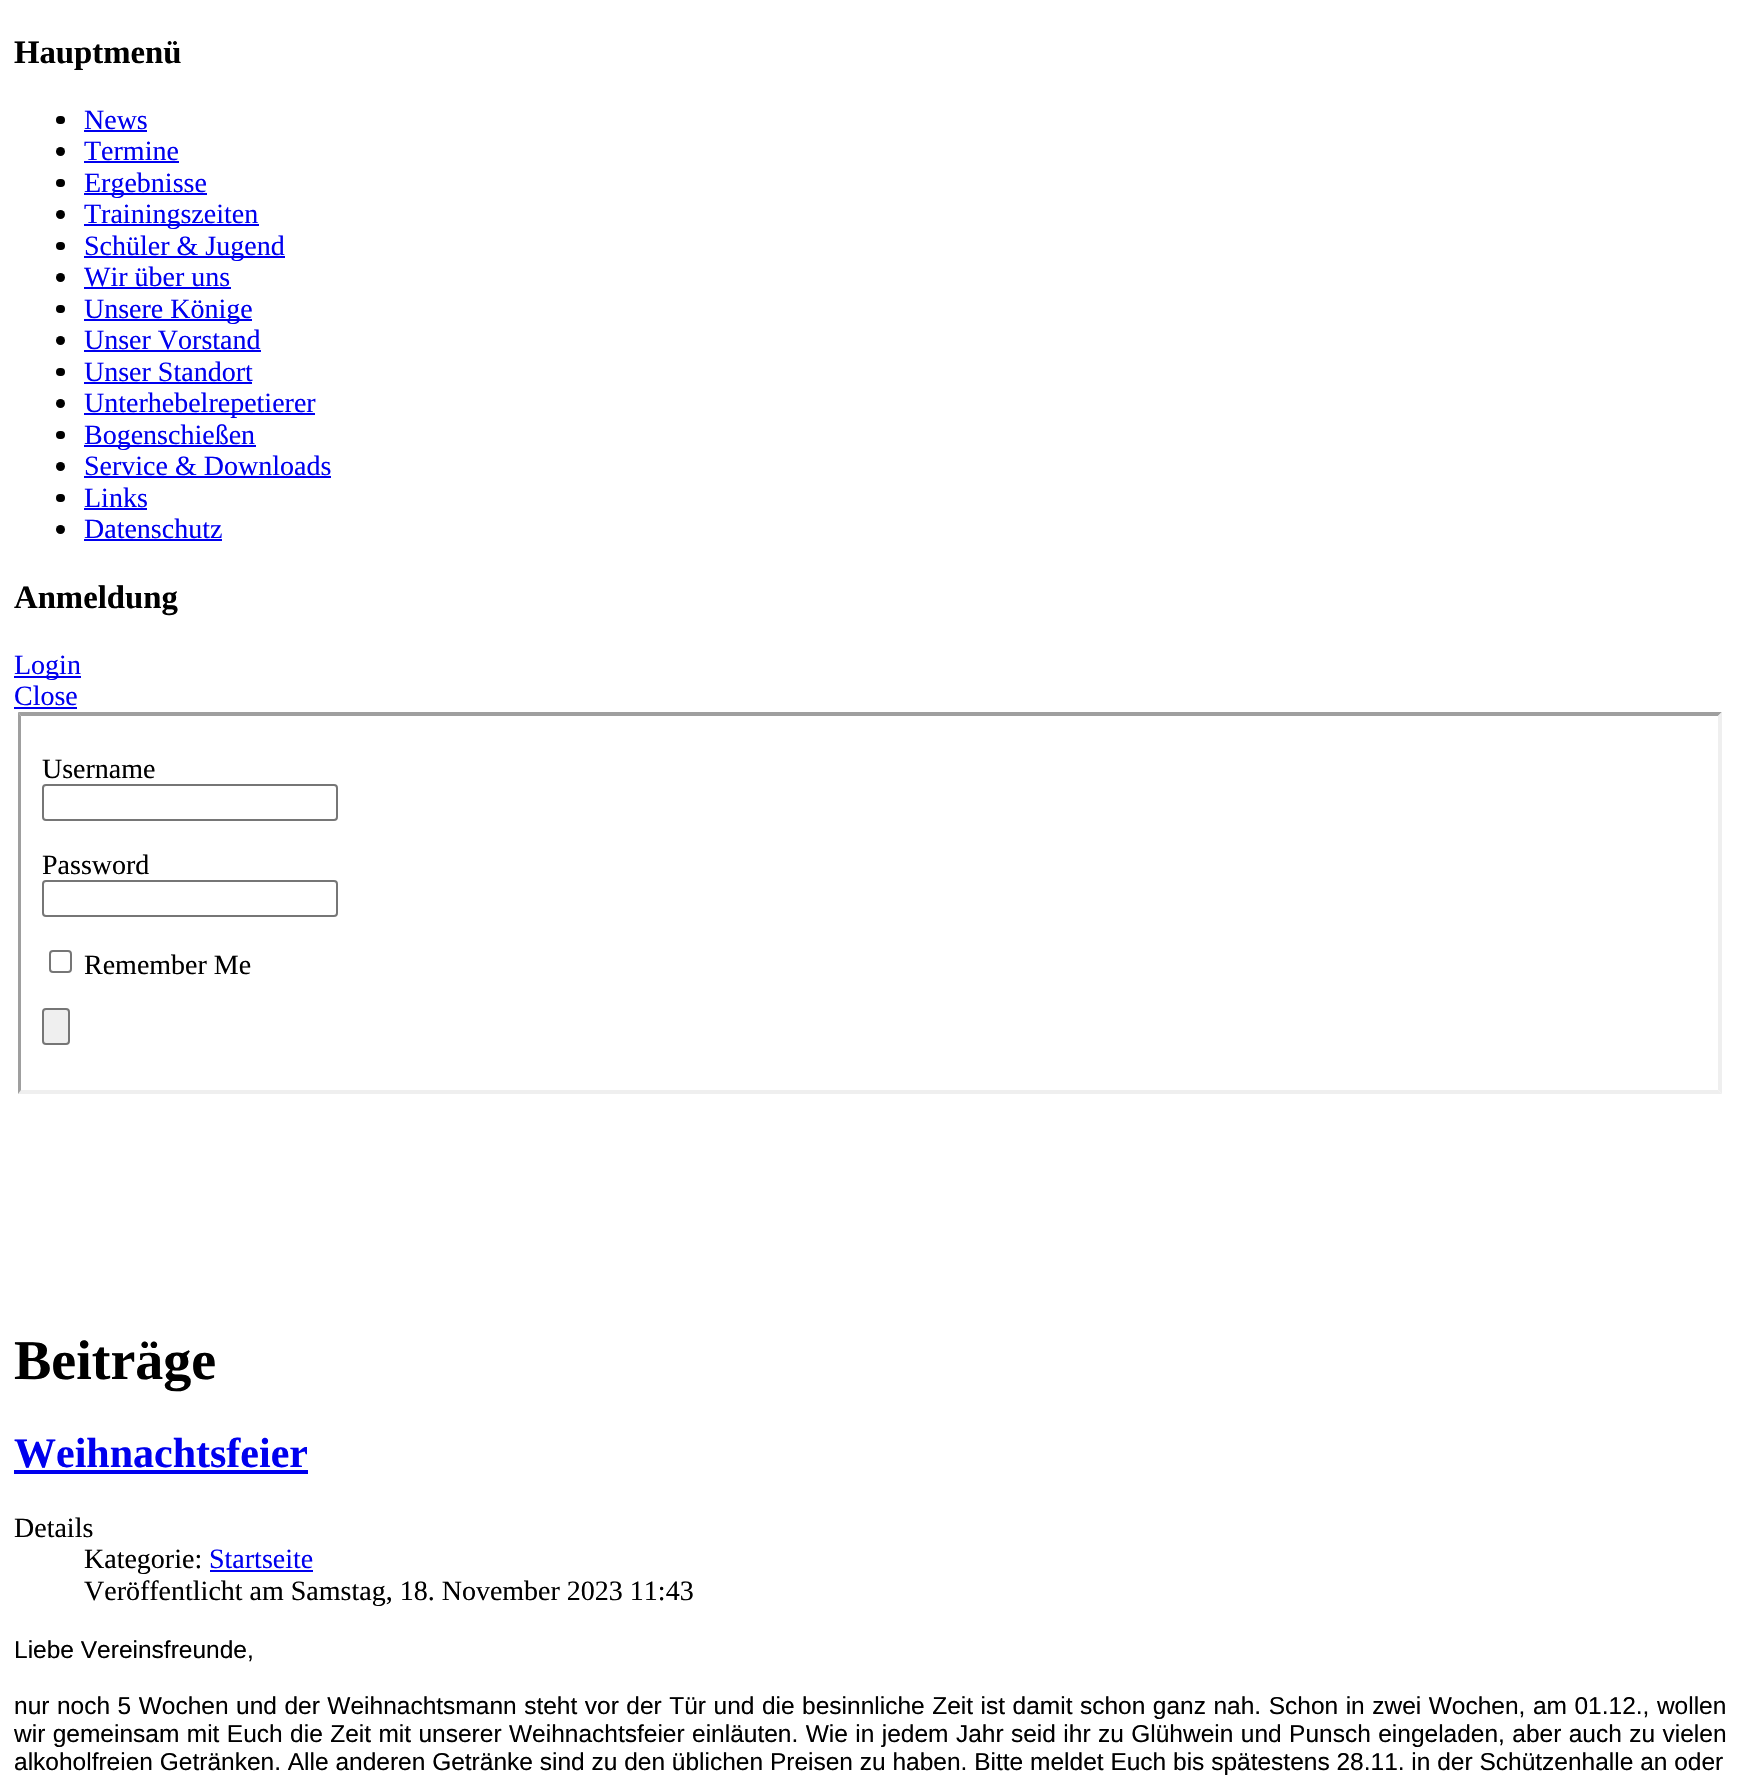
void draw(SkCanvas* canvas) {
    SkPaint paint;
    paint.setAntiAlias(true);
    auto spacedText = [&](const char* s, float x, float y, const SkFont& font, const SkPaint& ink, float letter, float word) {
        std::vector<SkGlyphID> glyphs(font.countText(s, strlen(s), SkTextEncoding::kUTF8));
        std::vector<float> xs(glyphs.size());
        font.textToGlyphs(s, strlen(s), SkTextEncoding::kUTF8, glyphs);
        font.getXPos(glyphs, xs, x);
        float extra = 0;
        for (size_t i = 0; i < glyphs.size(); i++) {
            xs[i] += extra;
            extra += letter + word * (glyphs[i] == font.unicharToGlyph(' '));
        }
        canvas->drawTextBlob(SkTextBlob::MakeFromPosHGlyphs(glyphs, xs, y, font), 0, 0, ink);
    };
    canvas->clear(0xFFFFFFFF);
    SkFont font1(fontMgr->matchFamilyStyle("Liberation Serif", SkFontStyle::Bold()), 32.75f);
    font1.setSubpixel(true);
    paint.setColor(0xFF000000);
    canvas->drawString("Hauptmenü", 14, 63, font1, paint);
    canvas->drawRoundRect(SkRect::MakeXYWH(56, 116, 9, 8), 4, 4, paint);
    SkFont font2(fontMgr->matchFamilyStyle("Liberation Serif", SkFontStyle::Normal()), 28);
    font2.setSubpixel(true);
    paint.setColor(0xFF0000EE);
    canvas->drawString("News", 84, 129, font2, paint);
    canvas->drawRect(SkRect::MakeXYWH(84, 130, 63, 2), paint);
    paint.setColor(0xFF000000);
    canvas->drawCircle(60.5f, 151.5f, 4.5f, paint);
    paint.setColor(0xFF0000EE);
    canvas->drawString("Termine", 84, 160, font2, paint);
    canvas->drawRect(SkRect::MakeXYWH(84, 161, 95, 2), paint);
    paint.setColor(0xFF000000);
    canvas->drawRoundRect(SkRect::MakeXYWH(56, 179, 9, 8), 4, 4, paint);
    paint.setColor(0xFF0000EE);
    canvas->drawRect(SkRect::MakeXYWH(84, 193, 123, 2), paint);
    canvas->drawString("Ergebnisse", 84, 192, font2, paint);
    paint.setColor(0xFF000000);
    canvas->drawCircle(60.5f, 214.5f, 4.5f, paint);
    paint.setColor(0xFF0000EE);
    canvas->drawRect(SkRect::MakeXYWH(84, 224, 175, 2), paint);
    canvas->drawString("Trainingszeiten", 84, 223, font2, paint);
    paint.setColor(0xFF000000);
    canvas->drawRoundRect(SkRect::MakeXYWH(56, 242, 9, 8), 4, 4, paint);
    paint.setColor(0xFF0000EE);
    canvas->drawRect(SkRect::MakeXYWH(84, 256, 201, 2), paint);
    canvas->drawString("Schüler & Jugend", 84, 255, font2, paint);
    paint.setColor(0xFF000000);
    canvas->drawCircle(60.5f, 277.5f, 4.5f, paint);
    paint.setColor(0xFF0000EE);
    canvas->drawString("Wir über uns", 84, 286, font2, paint);
    canvas->drawRect(SkRect::MakeXYWH(84, 287, 147, 2), paint);
    paint.setColor(0xFF000000);
    canvas->drawRoundRect(SkRect::MakeXYWH(56, 305, 9, 8), 4, 4, paint);
    paint.setColor(0xFF0000EE);
    canvas->drawRect(SkRect::MakeXYWH(84, 319, 168, 2), paint);
    canvas->drawString("Unsere Könige", 84, 318, font2, paint);
    paint.setColor(0xFF000000);
    canvas->drawCircle(60.5f, 340.5f, 4.5f, paint);
    paint.setColor(0xFF0000EE);
    canvas->drawString("Unser Vorstand", 84, 349, font2, paint);
    canvas->drawRect(SkRect::MakeXYWH(84, 350, 177, 2), paint);
    paint.setColor(0xFF000000);
    canvas->drawRoundRect(SkRect::MakeXYWH(56, 368, 9, 8), 4, 4, paint);
    paint.setColor(0xFF0000EE);
    canvas->drawString("Unser Standort", 84, 381, font2, paint);
    canvas->drawRect(SkRect::MakeXYWH(84, 382, 168, 2), paint);
    paint.setColor(0xFF000000);
    canvas->drawCircle(60.5f, 403.5f, 4.5f, paint);
    paint.setColor(0xFF0000EE);
    canvas->drawRect(SkRect::MakeXYWH(84, 413, 231, 2), paint);
    canvas->drawString("Unterhebelrepetierer", 84, 412, font2, paint);
    paint.setColor(0xFF000000);
    canvas->drawRoundRect(SkRect::MakeXYWH(56, 431, 9, 8), 4, 4, paint);
    paint.setColor(0xFF0000EE);
    canvas->drawRect(SkRect::MakeXYWH(84, 445, 172, 2), paint);
    canvas->drawString("Bogenschießen", 84, 444, font2, paint);
    paint.setColor(0xFF000000);
    canvas->drawCircle(60.5f, 466.5f, 4.5f, paint);
    paint.setColor(0xFF0000EE);
    canvas->drawString("Service & Downloads", 84, 475, font2, paint);
    canvas->drawRect(SkRect::MakeXYWH(84, 476, 247, 2), paint);
    paint.setColor(0xFF000000);
    canvas->drawRoundRect(SkRect::MakeXYWH(56, 494, 9, 8), 4, 4, paint);
    paint.setColor(0xFF0000EE);
    canvas->drawString("Links", 84, 507, font2, paint);
    canvas->drawRect(SkRect::MakeXYWH(84, 508, 63, 2), paint);
    paint.setColor(0xFF000000);
    canvas->drawCircle(60.5f, 529.5f, 4.5f, paint);
    paint.setColor(0xFF0000EE);
    canvas->drawString("Datenschutz", 84, 538, font2, paint);
    canvas->drawRect(SkRect::MakeXYWH(84, 539, 138, 2), paint);
    paint.setColor(0xFF000000);
    canvas->drawString("Anmeldung", 14, 608, font1, paint);
    paint.setColor(0xFF0000EE);
    canvas->drawRect(SkRect::MakeXYWH(14, 676, 67, 2), paint);
    canvas->drawString("Login", 14, 674, font2, paint);
    canvas->drawString("Close", 14, 705, font2, paint);
    canvas->drawRect(SkRect::MakeXYWH(14, 707, 63, 2), paint);
    paint.setColor(0xFF9F9F9F);
    canvas->drawPath(SkPathBuilder().moveTo(18, 712).lineTo(1722, 712).lineTo(1718, 716).lineTo(21, 716).close().detach(), paint);
    paint.setColor(0xFFEFEFEF);
    canvas->drawPath(SkPathBuilder().moveTo(1722, 712).lineTo(1722, 1094).lineTo(1718, 1090).lineTo(1718, 716).close().detach(), paint);
    canvas->drawPath(SkPathBuilder().moveTo(1722, 1094).lineTo(18, 1094).lineTo(21, 1090).lineTo(1718, 1090).close().detach(), paint);
    paint.setColor(0xFF9F9F9F);
    canvas->drawPath(SkPathBuilder().moveTo(18, 1094).lineTo(18, 712).lineTo(21, 716).lineTo(21, 1090).close().detach(), paint);
    paint.setColor(0xFF000000);
    canvas->drawString("Username", 42, 778, font2, paint);
    paint.setStyle(SkPaint::kStroke_Style);
    paint.setStrokeWidth(2);
    paint.setColor(0xFF767676);
    canvas->drawRoundRect(SkRect::MakeXYWH(43, 785, 294, 35), 3, 3, paint);
    paint.setStyle(SkPaint::kFill_Style);
    paint.setColor(0xFF000000);
    canvas->drawString("Password", 42, 874, font2, paint);
    paint.setStyle(SkPaint::kStroke_Style);
    paint.setColor(0xFF767676);
    canvas->drawRoundRect(SkRect::MakeXYWH(43, 881, 294, 35), 3, 3, paint);
    canvas->drawRoundRect(SkRect::MakeXYWH(50, 951, 21, 21), 3, 3, paint);
    paint.setStyle(SkPaint::kFill_Style);
    paint.setColor(0xFF000000);
    canvas->drawString("Remember Me", 84, 974, font2, paint);
    paint.setColor(0xFFEFEFEF);
    canvas->drawRoundRect(SkRect::MakeXYWH(43, 1009, 26, 35), 3, 3, paint);
    paint.setStyle(SkPaint::kStroke_Style);
    paint.setColor(0xFF767676);
    canvas->drawRoundRect(SkRect::MakeXYWH(43, 1009, 26, 35), 3, 3, paint);
    SkFont font3(fontMgr->matchFamilyStyle("Liberation Serif", SkFontStyle::Bold()), 56);
    font3.setSubpixel(true);
    paint.setStyle(SkPaint::kFill_Style);
    paint.setColor(0xFF000000);
    canvas->drawString("Beiträge", 14, 1379, font3, paint);
    SkFont font4(fontMgr->matchFamilyStyle("Liberation Serif", SkFontStyle::Bold()), 42);
    font4.setSubpixel(true);
    paint.setColor(0xFF0000EE);
    canvas->drawString("Weihnachtsfeier", 14, 1467, font4, paint);
    canvas->drawRect(SkRect::MakeXYWH(14, 1470, 294, 4), paint);
    paint.setColor(0xFF000000);
    canvas->drawString("Details", 14, 1537, font2, paint);
    canvas->drawString("Kategorie:", 84, 1568, font2, paint);
    paint.setColor(0xFF0000EE);
    canvas->drawString("Startseite", 209, 1568, font2, paint);
    canvas->drawRect(SkRect::MakeXYWH(210, 1570, 103, 2), paint);
    paint.setColor(0xFF000000);
    canvas->drawString("Veröffentlicht am Samstag, 18. November 2023 11:43", 84, 1600, font2, paint);
    SkFont font5(fontMgr->matchFamilyStyle("Liberation Sans", SkFontStyle::Normal()), 24.5f);
    font5.setSubpixel(true);
    canvas->drawString("Liebe Vereinsfreunde,", 14, 1658, font5, paint);
    spacedText("nur noch 5 Wochen und der Weihnachtsmann steht vor der Tür und die besinnliche Zeit ist damit schon ganz nah. Schon in zwei Wochen, am 01.12., wollen", 14, 1714, font5, paint, 0, 0.7f);
    spacedText("wir gemeinsam mit Euch die Zeit mit unserer Weihnachtsfeier einläuten. Wie in jedem Jahr seid ihr zu Glühwein und Punsch eingeladen, aber auch zu vielen", 14, 1742, font5, paint, 0, 0.6f);
    canvas->drawString("alkoholfreien Getränken. Alle anderen Getränke sind zu den üblichen Preisen zu haben. Bitte meldet Euch bis spätestens 28.11. in der Schützenhalle an oder", 14, 1770, font5, paint);
}
